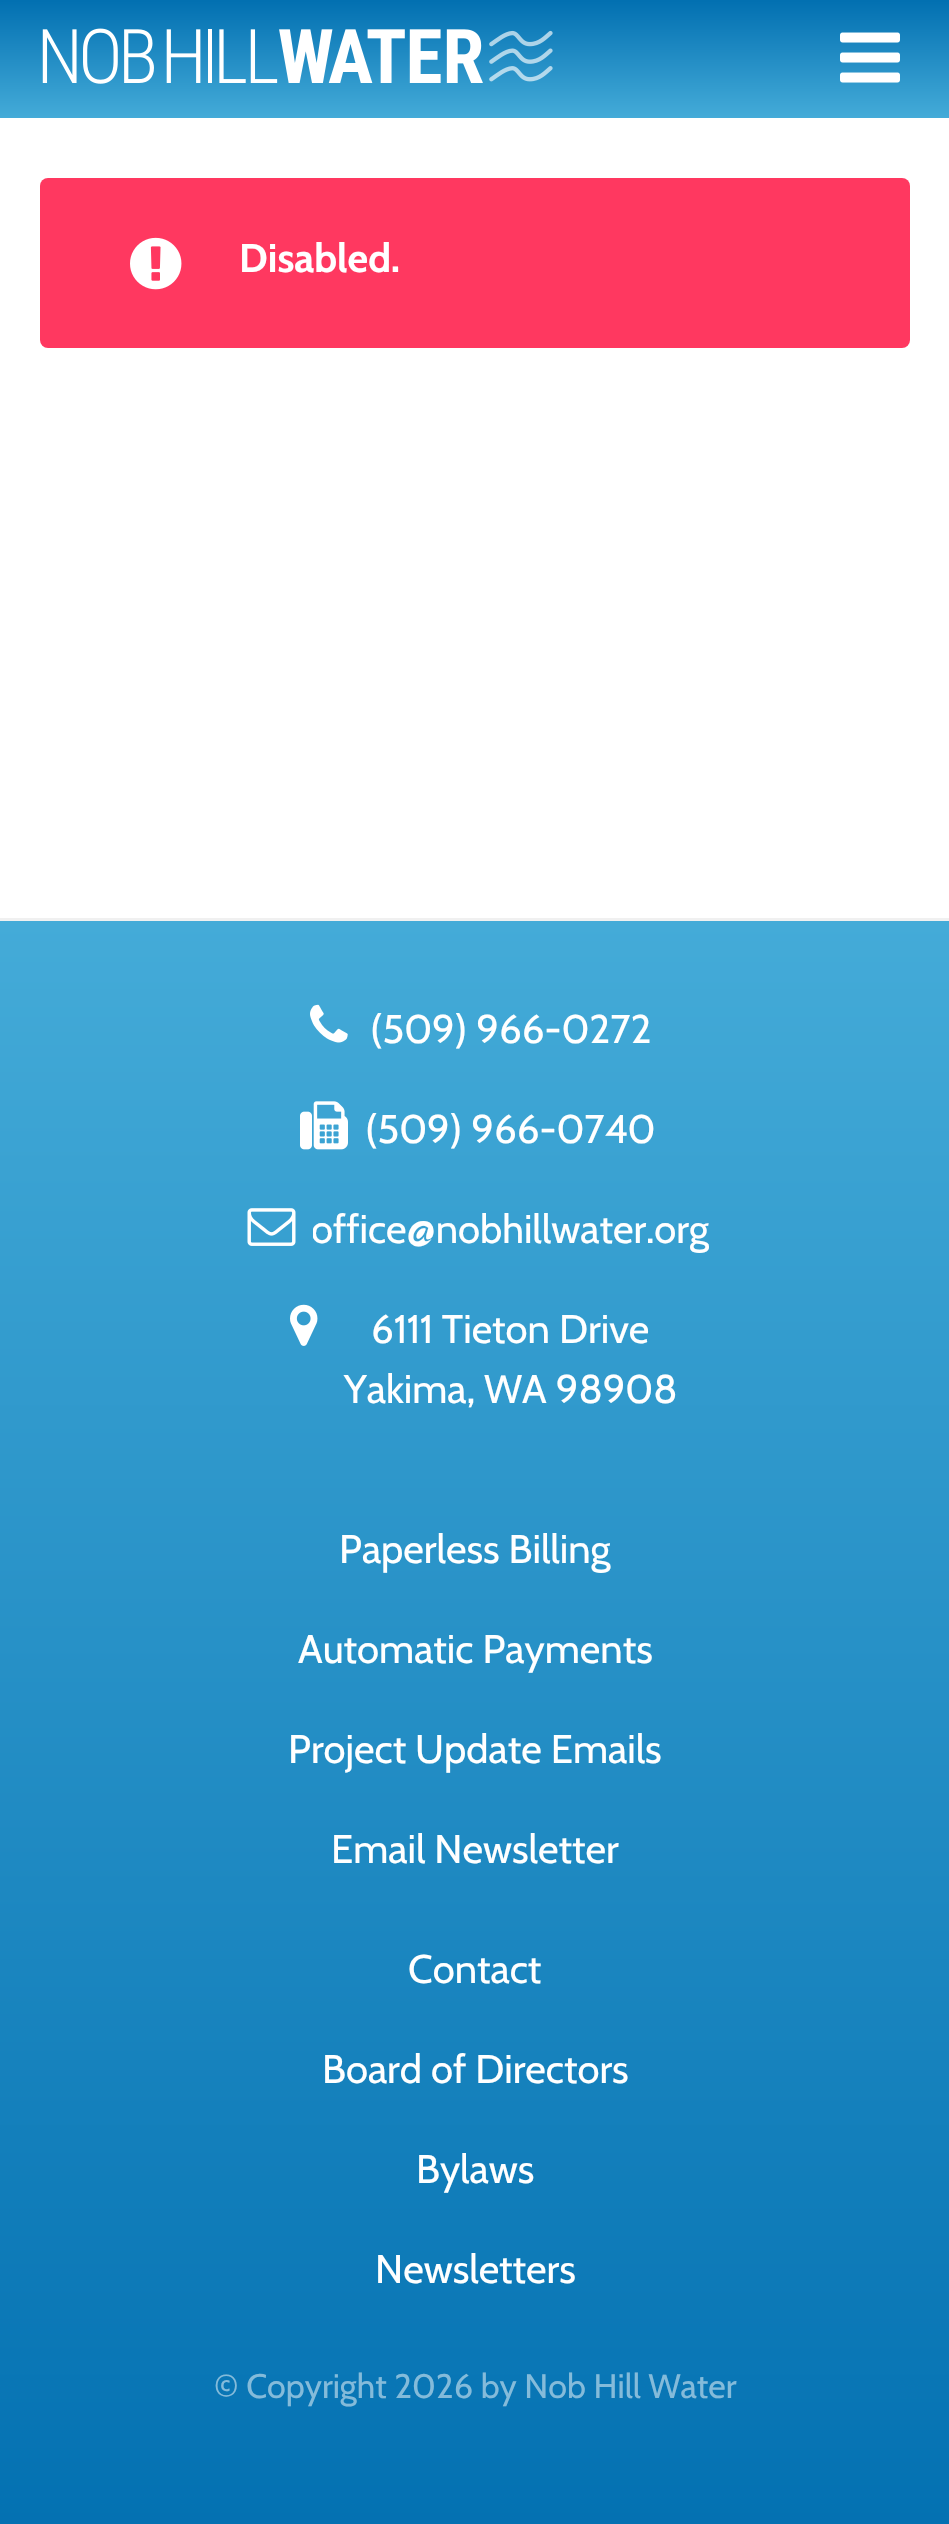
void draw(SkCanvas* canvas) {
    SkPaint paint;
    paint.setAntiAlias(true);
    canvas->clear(0xFFFFFFFF);
    {
        const SkColor colors[] = {0xFF006EB0, 0xFF44ABD8};
        const float stops[] = {0, 1};
        const SkPoint ends[] = {{475, -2.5f}, {475, 118}};
        paint.setShader(SkGradientShader::MakeLinear(ends, colors, stops, 2, SkTileMode::kClamp));
        paint.setAlpha(255);
    }
    canvas->drawRect(SkRect::MakeXYWH(0, 0, 949, 118), paint);
    canvas->drawImageRect(SkImages::DeferredFromEncodedData(SkData::MakeFromFileName("img1.png")), SkRect::MakeXYWH(42, 28, 511, 56), SkSamplingOptions());
    canvas->drawImageRect(SkImages::DeferredFromEncodedData(SkData::MakeFromFileName("img2.png")), SkRect::MakeXYWH(840, 32, 60, 51), SkSamplingOptions());
    paint.setShader(nullptr);
    paint.setColor(0xFFFF3860);
    canvas->drawRoundRect(SkRect::MakeXYWH(40, 178, 870, 170), 8, 8, paint);
    canvas->drawImageRect(SkImages::DeferredFromEncodedData(SkData::MakeFromFileName("img3.png")), SkRect::MakeXYWH(130, 237, 52, 53), SkSamplingOptions());
    SkFont font1(fontMgr->matchFamilyStyle("Cabin", SkFontStyle::Bold()), 40);
    font1.setSubpixel(true);
    paint.setColor(0xFFFFFFFF);
    canvas->drawString("Disabled.", 239, 272, font1, paint);
    {
        const SkColor colors[] = {0xFF44ABD8, 0xFF006EB0};
        const float stops[] = {0, 1};
        const SkPoint ends[] = {{475, 920}, {475, 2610}};
        paint.setShader(SkGradientShader::MakeLinear(ends, colors, stops, 2, SkTileMode::kClamp));
        paint.setAlpha(255);
    }
    canvas->drawRect(SkRect::MakeXYWH(0, 921, 949, 1603), paint);
    paint.setShader(nullptr);
    paint.setColor(0xFFF0F0F0);
    canvas->drawRect(SkRect::MakeXYWH(0, 918, 949, 3), paint);
    canvas->drawImageRect(SkImages::DeferredFromEncodedData(SkData::MakeFromFileName("img4.png")), SkRect::MakeXYWH(310, 1004, 38, 39), SkSamplingOptions());
    SkFont font2(fontMgr->matchFamilyStyle("Cabin", SkFontStyle::Normal()), 40);
    font2.setSubpixel(true);
    paint.setColor(0xFFFFFFFF);
    canvas->drawString("(509) 966-0272", 370, 1043, font2, paint);
    canvas->drawImageRect(SkImages::DeferredFromEncodedData(SkData::MakeFromFileName("img5.png")), SkRect::MakeXYWH(300, 1101, 48, 49), SkSamplingOptions());
    canvas->drawString("(509) 966-0740", 365, 1143, font2, paint);
    canvas->drawImageRect(SkImages::DeferredFromEncodedData(SkData::MakeFromFileName("img6.png")), SkRect::MakeXYWH(247, 1208, 49, 38), SkSamplingOptions());
    canvas->save();
    canvas->clipRect(SkRect::MakeXYWH(313, 1200, 397, 60));
    canvas->drawString("office@nobhillwater.org", 311, 1243, font2, paint);
    canvas->restore();
    canvas->drawImageRect(SkImages::DeferredFromEncodedData(SkData::MakeFromFileName("img7.png")), SkRect::MakeXYWH(290, 1304, 28, 42), SkSamplingOptions());
    canvas->drawString("6111 Tieton Drive", 371, 1343, font2, paint);
    canvas->drawString("Yakima, WA 98908", 344, 1403, font2, paint);
    canvas->drawString("Paperless Billing", 339, 1563, font2, paint);
    canvas->drawString("Automatic Payments", 298, 1663, font2, paint);
    canvas->drawString("Project Update Emails", 288, 1763, font2, paint);
    canvas->drawString("Email Newsletter", 331, 1863, font2, paint);
    canvas->drawString("Contact", 408, 1983, font2, paint);
    canvas->drawString("Board of Directors", 322, 2083, font2, paint);
    canvas->drawString("Bylaws", 416, 2183, font2, paint);
    canvas->drawString("Newsletters", 375, 2283, font2, paint);
    SkFont font3(fontMgr->matchFamilyStyle("Cabin", SkFontStyle::Normal()), 34);
    font3.setSubpixel(true);
    paint.setColor(0xFF84BBDA);
    canvas->drawString("© Copyright 2026 by Nob Hill Water", 214, 2398, font3, paint);
}
